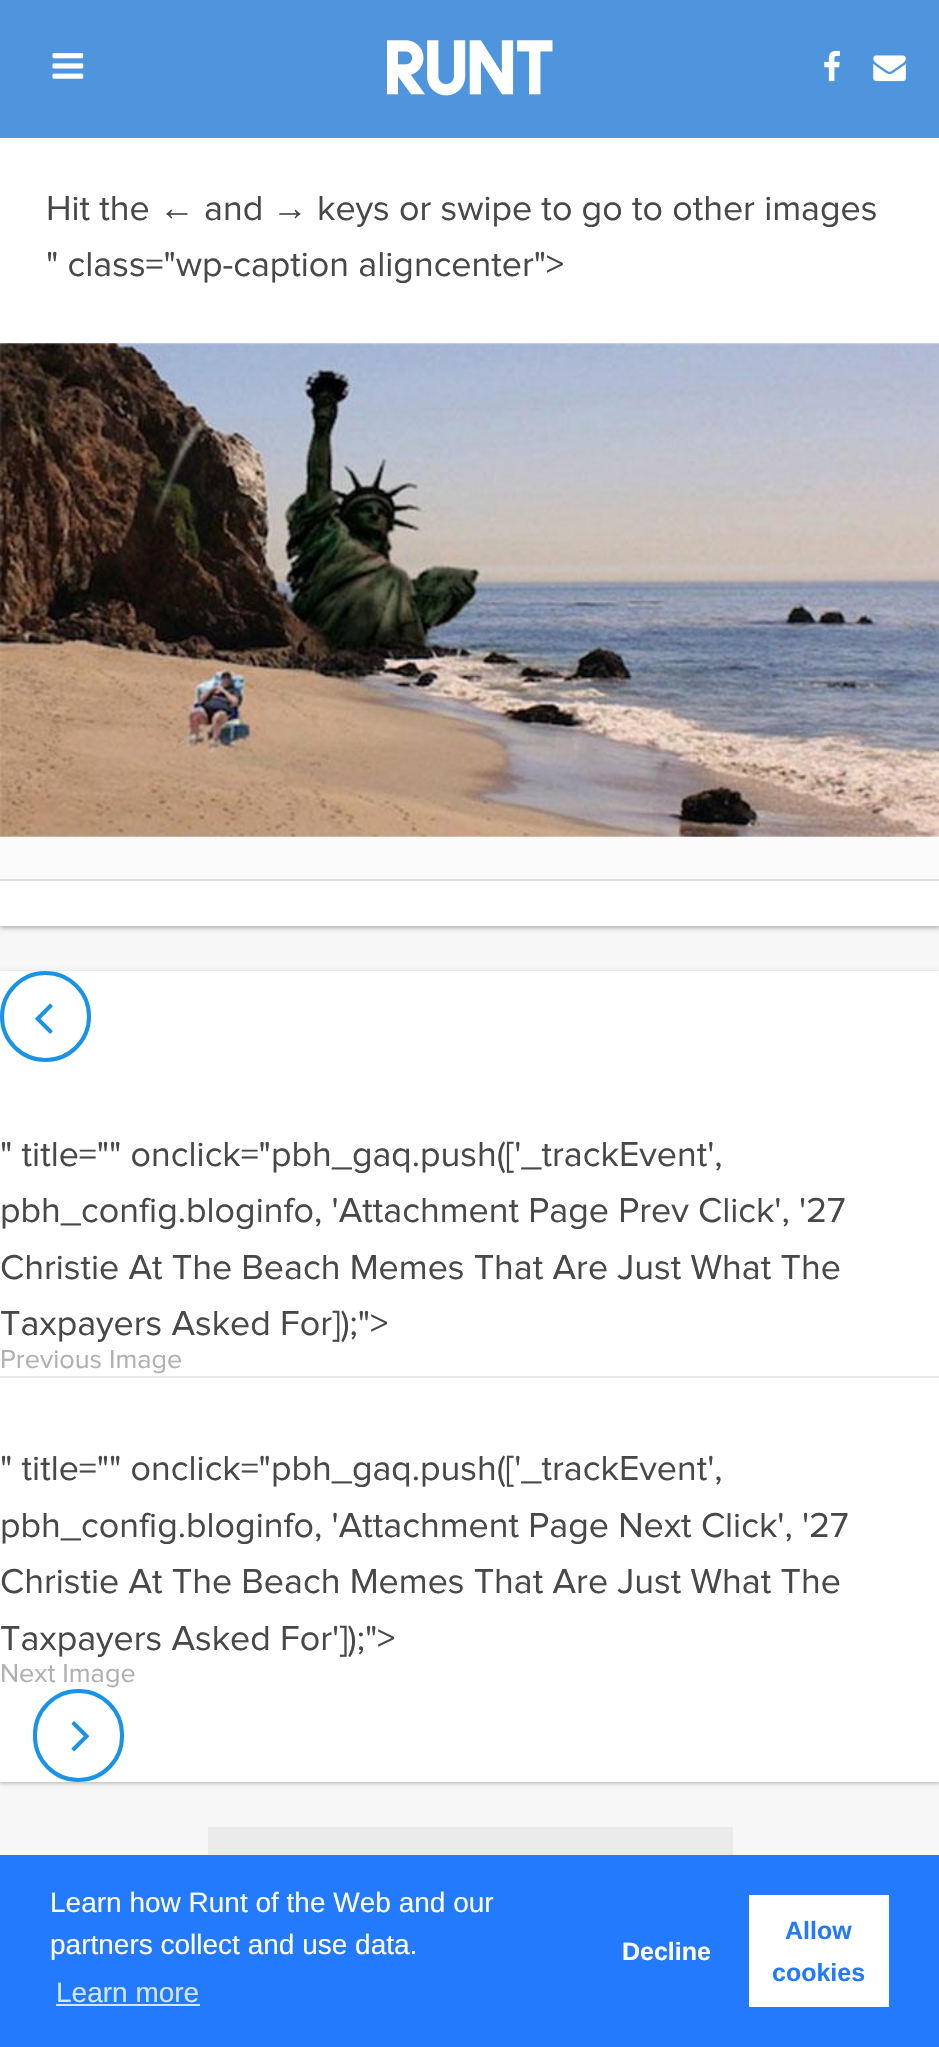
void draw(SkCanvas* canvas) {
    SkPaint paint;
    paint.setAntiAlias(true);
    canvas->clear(0xFFF7F7F7);
    paint.setColor(0x2E000000);
    paint.setMaskFilter(SkMaskFilter::MakeBlur(kNormal_SkBlurStyle, 2));
    canvas->drawRect(SkRect::MakeXYWH(0, 88, 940, 840), paint);
    paint.setMaskFilter(nullptr);
    paint.setColor(0x1F000000);
    paint.setMaskFilter(SkMaskFilter::MakeBlur(kNormal_SkBlurStyle, 2.5f));
    canvas->drawRect(SkRect::MakeXYWH(0, 88, 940, 840), paint);
    paint.setMaskFilter(nullptr);
    paint.setColor(0xFF4F95DE);
    canvas->drawRect(SkRect::MakeXYWH(0, 0, 939, 138), paint);
    canvas->drawImageRect(SkImages::DeferredFromEncodedData(SkData::MakeFromFileName("img1.png")), SkRect::MakeXYWH(52, 53, 32, 26), SkSamplingOptions());
    canvas->drawImageRect(SkImages::DeferredFromEncodedData(SkData::MakeFromFileName("img2.png")), SkRect::MakeXYWH(387, 40, 166, 56), SkSamplingOptions());
    canvas->drawImageRect(SkImages::DeferredFromEncodedData(SkData::MakeFromFileName("img3.png")), SkRect::MakeXYWH(824, 50, 16, 32), SkSamplingOptions());
    canvas->drawImageRect(SkImages::DeferredFromEncodedData(SkData::MakeFromFileName("img4.png")), SkRect::MakeXYWH(873, 55, 33, 27), SkSamplingOptions());
    paint.setColor(0xFFFFFFFF);
    canvas->drawRect(SkRect::MakeXYWH(0, 138, 939, 788), paint);
    SkFont font1(fontMgr->matchFamilyStyle("Proxima Nova", SkFontStyle::Normal()), 35.8f);
    font1.setSubpixel(true);
    paint.setColor(0xFF484848);
    canvas->drawString("Hit the", 46, 220, font1, paint);
    SkFont font2(fontMgr->matchFamilyStyle("Liberation Serif", SkFontStyle::Normal()), 35.8f);
    font2.setSubpixel(true);
    canvas->drawString("←", 159, 220, font2, paint);
    canvas->drawString("and", 204, 220, font1, paint);
    canvas->drawString("→", 272, 220, font2, paint);
    canvas->drawString("keys or swipe to go to other images", 317, 220, font1, paint);
    canvas->drawString("\" class=\"wp-caption aligncenter\">", 46, 276, font1, paint);
    canvas->drawImageRect(SkImages::DeferredFromEncodedData(SkData::MakeFromFileName("img5.png")), SkRect::MakeXYWH(0, 343, 939, 494), SkSamplingOptions());
    paint.setColor(0xFFFBFBFB);
    canvas->drawRect(SkRect::MakeXYWH(0, 837, 939, 42), paint);
    paint.setColor(0xFFDEDEDE);
    canvas->drawRect(SkRect::MakeXYWH(0, 879, 939, 2), paint);
    paint.setColor(0x2E000000);
    paint.setMaskFilter(SkMaskFilter::MakeBlur(kNormal_SkBlurStyle, 2));
    canvas->drawRect(SkRect::MakeXYWH(0, 973, 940, 810), paint);
    paint.setMaskFilter(nullptr);
    paint.setColor(0x1F000000);
    paint.setMaskFilter(SkMaskFilter::MakeBlur(kNormal_SkBlurStyle, 2.5f));
    canvas->drawRect(SkRect::MakeXYWH(0, 973, 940, 810), paint);
    paint.setMaskFilter(nullptr);
    paint.setColor(0xFFFFFFFF);
    canvas->drawRect(SkRect::MakeXYWH(0, 971, 939, 811), paint);
    paint.setStyle(SkPaint::kStroke_Style);
    paint.setStrokeWidth(4);
    paint.setColor(0xFF1893E7);
    canvas->drawCircle(45.5f, 1016.5f, 43.5f, paint);
    canvas->drawImageRect(SkImages::DeferredFromEncodedData(SkData::MakeFromFileName("img6.png")), SkRect::MakeXYWH(35, 1003, 18, 31), SkSamplingOptions());
    paint.setStyle(SkPaint::kFill_Style);
    paint.setColor(0xFF484848);
    canvas->drawString("\" title=\"\" onclick=\"pbh_gaq.push(['_trackEvent',", 0, 1166, font1, paint);
    canvas->drawString("pbh_config.bloginfo, 'Attachment Page Prev Click', '27", 0, 1222, font1, paint);
    canvas->drawString("Christie At The Beach Memes That Are Just What The", 0, 1279, font1, paint);
    canvas->drawString("Taxpayers Asked For]);\">", 0, 1335, font1, paint);
    SkFont font3(fontMgr->matchFamilyStyle("Proxima Nova", SkFontStyle::Normal()), 27);
    font3.setSubpixel(true);
    paint.setColor(0xFFB0B0B0);
    canvas->drawString("Previous Image", 0, 1368, font3, paint);
    paint.setColor(0xFFE8E8E8);
    canvas->drawRect(SkRect::MakeXYWH(0, 1376, 939, 2), paint);
    paint.setColor(0xFF484848);
    canvas->drawString("\" title=\"\" onclick=\"pbh_gaq.push(['_trackEvent',", 0, 1480, font1, paint);
    canvas->drawString("pbh_config.bloginfo, 'Attachment Page Next Click', '27", 0, 1537, font1, paint);
    canvas->drawString("Christie At The Beach Memes That Are Just What The", 0, 1593, font1, paint);
    canvas->drawString("Taxpayers Asked For']);\">", 0, 1650, font1, paint);
    paint.setColor(0xFFB0B0B0);
    canvas->drawString("Next Image", 0, 1682, font3, paint);
    paint.setStyle(SkPaint::kStroke_Style);
    paint.setColor(0xFF1893E7);
    canvas->drawRoundRect(SkRect::MakeXYWH(35, 1691, 87, 89), 43.5f, 43.5f, paint);
    canvas->drawImageRect(SkImages::DeferredFromEncodedData(SkData::MakeFromFileName("img7.png")), SkRect::MakeXYWH(71, 1721, 18, 31), SkSamplingOptions());
    paint.setStyle(SkPaint::kFill_Style);
    paint.setColor(0xFFEBEBEB);
    canvas->drawRect(SkRect::MakeXYWH(208, 1827, 525, 28), paint);
    paint.setColor(0xFF237AFC);
    canvas->drawRect(SkRect::MakeXYWH(0, 1855, 939, 192), paint);
    SkFont font4(fontMgr->matchFamilyStyle("Liberation Sans", SkFontStyle::Normal()), 28);
    font4.setSubpixel(true);
    paint.setColor(0xFFFFFFFF);
    canvas->drawString("Learn how Runt of the Web and our", 50, 1912, font4, paint);
    canvas->drawString("partners collect and use data.", 50, 1954, font4, paint);
    paint.setColor(0xFFD3E4FE);
    canvas->drawString("Learn more", 56, 2002, font4, paint);
    canvas->drawRect(SkRect::MakeXYWH(56, 2004, 144, 2), paint);
    SkFont font5(fontMgr->matchFamilyStyle("Liberation Sans", SkFontStyle::Bold()), 25);
    font5.setSubpixel(true);
    paint.setColor(0xFFFFFFFF);
    canvas->drawString("Decline", 622, 1960, font5, paint);
    canvas->drawRect(SkRect::MakeXYWH(749, 1895, 140, 112), paint);
    paint.setColor(0xFF237AFC);
    canvas->drawString("Allow", 785, 1939, font5, paint);
    canvas->drawString("cookies", 772, 1981, font5, paint);
}
